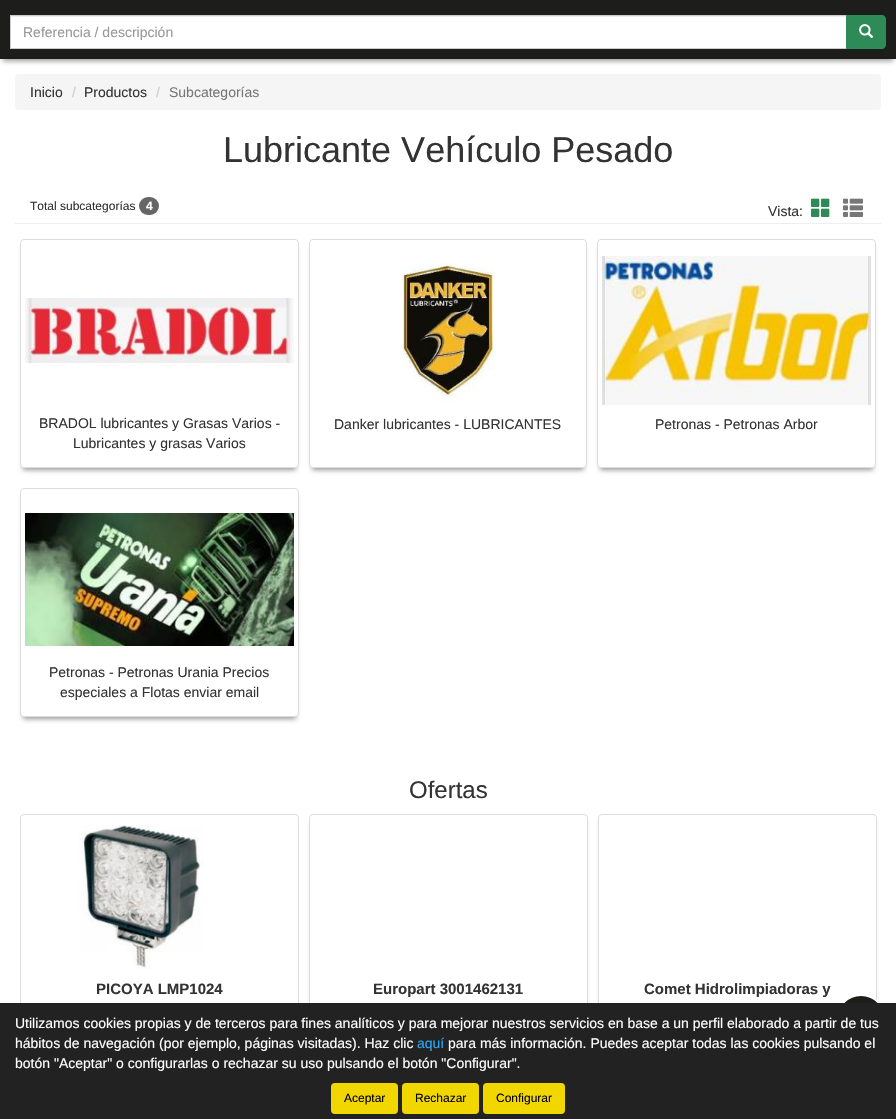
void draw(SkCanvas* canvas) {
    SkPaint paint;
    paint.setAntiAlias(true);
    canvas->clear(0xFFFFFFFF);
    paint.setColor(0xFF1D1D1B);
    canvas->drawRect(SkRect::MakeXYWH(0, 0, 896, 15), paint);
    paint.setColor(0x66000000);
    paint.setMaskFilter(SkMaskFilter::MakeBlur(kNormal_SkBlurStyle, 2.5f));
    canvas->drawRect(SkRect::MakeXYWH(3, 23, 890, 38), paint);
    paint.setMaskFilter(nullptr);
    paint.setColor(0xFF1D1D1B);
    canvas->drawRect(SkRect::MakeXYWH(0, 15, 896, 44), paint);
    paint.setColor(0xFFFFFFFF);
    canvas->drawRect(SkRect::MakeXYWH(11, 17, 835, 31), paint);
    paint.setColor(0xFFECECEC);
    canvas->drawRect(SkRect::MakeXYWH(11, 16, 835, 1), paint);
    paint.setStyle(SkPaint::kStroke_Style);
    paint.setStrokeWidth(1);
    paint.setColor(0xFFCCCCCC);
    canvas->drawRect(SkRect::MakeXYWH(10.5f, 15.5f, 836, 33), paint);
    SkFont font1(fontMgr->matchFamilyStyle("Liberation Sans", SkFontStyle::Normal()), 14);
    font1.setSubpixel(true);
    paint.setStyle(SkPaint::kFill_Style);
    paint.setColor(0xFF999999);
    canvas->drawString("Referencia / descripción", 23, 37, font1, paint);
    paint.setColor(0xFF2E8B57);
    canvas->drawPath(SkPathBuilder().moveTo(846.5f, 15.5f).lineTo(882, 15.5f).cubicTo(884, 15.5f, 885.5f, 17, 885.5f, 19).lineTo(885.5f, 45).cubicTo(885.5f, 47, 884, 48.5f, 882, 48.5f).lineTo(846.5f, 48.5f).close().detach(), paint);
    paint.setStyle(SkPaint::kStroke_Style);
    canvas->drawPath(SkPathBuilder().moveTo(846.5f, 15.5f).lineTo(882, 15.5f).cubicTo(884, 15.5f, 885.5f, 17, 885.5f, 19).lineTo(885.5f, 45).cubicTo(885.5f, 47, 884, 48.5f, 882, 48.5f).lineTo(846.5f, 48.5f).close().detach(), paint);
    canvas->drawImageRect(SkImages::DeferredFromEncodedData(SkData::MakeFromFileName("img1.png")), SkRect::MakeXYWH(859, 24, 15, 14), SkSamplingOptions());
    paint.setStyle(SkPaint::kFill_Style);
    paint.setColor(0xFFF5F5F5);
    canvas->drawRoundRect(SkRect::MakeXYWH(15, 74, 866, 36), 4, 4, paint);
    paint.setColor(0xFF333333);
    canvas->drawString("Inicio", 30, 97, font1, paint);
    paint.setColor(0xFFCCCCCC);
    canvas->drawString("/", 72, 97, font1, paint);
    paint.setColor(0xFF333333);
    canvas->drawString("Productos", 84, 97, font1, paint);
    paint.setColor(0xFFCCCCCC);
    canvas->drawString("/", 156, 97, font1, paint);
    paint.setColor(0xFF777777);
    canvas->drawString("Subcategorías", 169, 97, font1, paint);
    SkFont font2(fontMgr->matchFamilyStyle("Liberation Sans", SkFontStyle::Normal()), 36);
    font2.setSubpixel(true);
    paint.setColor(0xFF333333);
    canvas->drawString("Lubricante Vehículo Pesado", 223, 162, font2, paint);
    paint.setColor(0xFFEEEEEE);
    canvas->drawRect(SkRect::MakeXYWH(15, 223, 866, 1), paint);
    SkFont font3(fontMgr->matchFamilyStyle("Liberation Sans", SkFontStyle::Normal()), 12);
    font3.setSubpixel(true);
    paint.setColor(0xFF333333);
    canvas->drawString("Total subcategorías", 30, 210, font3, paint);
    paint.setColor(0xFF666666);
    canvas->drawRoundRect(SkRect::MakeXYWH(139, 197, 20, 18), 9, 9, paint);
    SkFont font4(fontMgr->matchFamilyStyle("Liberation Sans", SkFontStyle::Bold()), 12);
    font4.setSubpixel(true);
    paint.setColor(0xFFFFFFFF);
    canvas->drawString("4", 146, 210, font4, paint);
    paint.setColor(0xFF333333);
    canvas->drawString("Vista:", 768, 216, font1, paint);
    canvas->drawImageRect(SkImages::DeferredFromEncodedData(SkData::MakeFromFileName("img2.png")), SkRect::MakeXYWH(811, 198, 19, 19), SkSamplingOptions());
    canvas->drawImageRect(SkImages::DeferredFromEncodedData(SkData::MakeFromFileName("img3.png")), SkRect::MakeXYWH(843, 198, 20, 19), SkSamplingOptions());
    paint.setColor(0x66000000);
    paint.setMaskFilter(SkMaskFilter::MakeBlur(kNormal_SkBlurStyle, 2.5f));
    canvas->drawRoundRect(SkRect::MakeXYWH(23, 247, 273, 223), 1, 1, paint);
    paint.setMaskFilter(nullptr);
    paint.setColor(0xFFFFFFFF);
    canvas->drawRoundRect(SkRect::MakeXYWH(20.5f, 239.5f, 278, 228), 3.5f, 3.5f, paint);
    paint.setStyle(SkPaint::kStroke_Style);
    paint.setColor(0xFFDDDDDD);
    canvas->drawRoundRect(SkRect::MakeXYWH(20.5f, 239.5f, 278, 228), 3.5f, 3.5f, paint);
    canvas->drawImageRect(SkImages::DeferredFromEncodedData(SkData::MakeFromFileName("img4.png")), SkRect::MakeXYWH(25, 298, 269, 65), SkSamplingOptions());
    paint.setStyle(SkPaint::kFill_Style);
    paint.setColor(0xFF333333);
    canvas->drawString("BRADOL lubricantes y Grasas Varios -", 39, 428, font1, paint);
    canvas->drawString("Lubricantes y grasas Varios", 73, 448, font1, paint);
    paint.setColor(0x66000000);
    paint.setMaskFilter(SkMaskFilter::MakeBlur(kNormal_SkBlurStyle, 2.5f));
    canvas->drawRoundRect(SkRect::MakeXYWH(312, 247, 272, 223), 1, 1, paint);
    paint.setMaskFilter(nullptr);
    paint.setColor(0xFFFFFFFF);
    canvas->drawRoundRect(SkRect::MakeXYWH(309.5f, 239.5f, 277, 228), 3.5f, 3.5f, paint);
    paint.setStyle(SkPaint::kStroke_Style);
    paint.setColor(0xFFDDDDDD);
    canvas->drawRoundRect(SkRect::MakeXYWH(309.5f, 239.5f, 277, 228), 3.5f, 3.5f, paint);
    canvas->drawImageRect(SkImages::DeferredFromEncodedData(SkData::MakeFromFileName("img5.png")), SkRect::MakeXYWH(401, 263, 94, 140), SkSamplingOptions());
    paint.setStyle(SkPaint::kFill_Style);
    paint.setColor(0xFF333333);
    canvas->drawString("Danker lubricantes - LUBRICANTES", 334, 429, font1, paint);
    paint.setColor(0x66000000);
    paint.setMaskFilter(SkMaskFilter::MakeBlur(kNormal_SkBlurStyle, 2.5f));
    canvas->drawRoundRect(SkRect::MakeXYWH(600, 247, 273, 223), 1, 1, paint);
    paint.setMaskFilter(nullptr);
    paint.setColor(0xFFFFFFFF);
    canvas->drawRoundRect(SkRect::MakeXYWH(597.5f, 239.5f, 278, 228), 3.5f, 3.5f, paint);
    paint.setStyle(SkPaint::kStroke_Style);
    paint.setColor(0xFFDDDDDD);
    canvas->drawRoundRect(SkRect::MakeXYWH(597.5f, 239.5f, 278, 228), 3.5f, 3.5f, paint);
    canvas->drawImageRect(SkImages::DeferredFromEncodedData(SkData::MakeFromFileName("img6.png")), SkRect::MakeXYWH(602, 256, 269, 149), SkSamplingOptions());
    paint.setStyle(SkPaint::kFill_Style);
    paint.setColor(0xFF333333);
    canvas->drawString("Petronas - Petronas Arbor", 655, 429, font1, paint);
    paint.setColor(0x66000000);
    paint.setMaskFilter(SkMaskFilter::MakeBlur(kNormal_SkBlurStyle, 2.5f));
    canvas->drawRoundRect(SkRect::MakeXYWH(23, 496, 273, 223), 1, 1, paint);
    paint.setMaskFilter(nullptr);
    paint.setColor(0xFFFFFFFF);
    canvas->drawRoundRect(SkRect::MakeXYWH(20.5f, 488.5f, 278, 228), 3.5f, 3.5f, paint);
    paint.setStyle(SkPaint::kStroke_Style);
    paint.setColor(0xFFDDDDDD);
    canvas->drawRoundRect(SkRect::MakeXYWH(20.5f, 488.5f, 278, 228), 3.5f, 3.5f, paint);
    canvas->drawImageRect(SkImages::DeferredFromEncodedData(SkData::MakeFromFileName("img7.png")), SkRect::MakeXYWH(25, 513, 269, 133), SkSamplingOptions());
    paint.setStyle(SkPaint::kFill_Style);
    paint.setColor(0xFF333333);
    canvas->drawString("Petronas - Petronas Urania Precios", 49, 677, font1, paint);
    canvas->drawString("especiales a Flotas enviar email", 60, 697, font1, paint);
    SkFont font5(fontMgr->matchFamilyStyle("Liberation Sans", SkFontStyle::Normal()), 24);
    font5.setSubpixel(true);
    canvas->drawString("Ofertas", 409, 798, font5, paint);
    paint.setStyle(SkPaint::kStroke_Style);
    paint.setColor(0xFFDDDDDD);
    canvas->drawRoundRect(SkRect::MakeXYWH(20.5f, 814.5f, 278, 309), 3.5f, 3.5f, paint);
    canvas->drawImageRect(SkImages::DeferredFromEncodedData(SkData::MakeFromFileName("img8.png")), SkRect::MakeXYWH(78, 825, 126, 144), SkSamplingOptions());
    SkFont font6(fontMgr->matchFamilyStyle("Liberation Sans", SkFontStyle::Bold()), 15);
    font6.setSubpixel(true);
    paint.setStyle(SkPaint::kFill_Style);
    paint.setColor(0xFF333333);
    canvas->drawString("PICOYA LMP1024", 96, 994, font6, paint);
    paint.setColor(0x66000000);
    paint.setMaskFilter(SkMaskFilter::MakeBlur(kNormal_SkBlurStyle, 2.5f));
    canvas->drawRoundRect(SkRect::MakeXYWH(312, 822, 273, 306), 1, 1, paint);
    paint.setMaskFilter(nullptr);
    paint.setColor(0xFFFFFFFF);
    canvas->drawRoundRect(SkRect::MakeXYWH(309.5f, 814.5f, 278, 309), 3.5f, 3.5f, paint);
    paint.setStyle(SkPaint::kStroke_Style);
    paint.setColor(0xFFDDDDDD);
    canvas->drawRoundRect(SkRect::MakeXYWH(309.5f, 814.5f, 278, 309), 3.5f, 3.5f, paint);
    paint.setStyle(SkPaint::kFill_Style);
    paint.setColor(0xFF333333);
    canvas->drawString("Europart 3001462131", 373, 994, font6, paint);
    paint.setColor(0x66000000);
    paint.setMaskFilter(SkMaskFilter::MakeBlur(kNormal_SkBlurStyle, 2.5f));
    canvas->drawRoundRect(SkRect::MakeXYWH(601, 822, 273, 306), 1, 1, paint);
    paint.setMaskFilter(nullptr);
    paint.setColor(0xFFFFFFFF);
    canvas->drawRoundRect(SkRect::MakeXYWH(598.5f, 814.5f, 278, 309), 3.5f, 3.5f, paint);
    paint.setStyle(SkPaint::kStroke_Style);
    paint.setColor(0xFFDDDDDD);
    canvas->drawRoundRect(SkRect::MakeXYWH(598.5f, 814.5f, 278, 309), 3.5f, 3.5f, paint);
    paint.setStyle(SkPaint::kFill_Style);
    paint.setColor(0xFF333333);
    canvas->drawString("Comet Hidrolimpiadoras y", 644, 994, font6, paint);
    paint.setColor(0xFF1D1D1B);
    canvas->drawCircle(861, 1019, 24, paint);
    paint.setStyle(SkPaint::kStroke_Style);
    paint.setStrokeWidth(2);
    paint.setColor(0xFFFFFFFF);
    canvas->drawCircle(861, 1019, 24, paint);
    paint.setStyle(SkPaint::kFill_Style);
    paint.setColor(0xFF222222);
    canvas->drawRect(SkRect::MakeXYWH(0, 1003, 896, 116), paint);
    paint.setColor(0xFFFFFFFF);
    canvas->drawString("Utilizamos cookies propias y de terceros para fines analíticos y para mejorar nuestros servicios en base a un perfil elaborado a partir de tus", 15, 1028, font1, paint);
    canvas->drawString("hábitos de navegación (por ejemplo, páginas visitadas). Haz clic", 15, 1048, font1, paint);
    paint.setColor(0xFF31A8F0);
    canvas->drawString("aquí", 417, 1048, font1, paint);
    paint.setColor(0xFFFFFFFF);
    canvas->drawString("para más información. Puedes aceptar todas las cookies pulsando el", 448, 1048, font1, paint);
    canvas->drawString("botón \"Aceptar\" o configurarlas o rechazar su uso pulsando el botón \"Configurar\".", 15, 1068, font1, paint);
    paint.setColor(0xFFF1D600);
    canvas->drawRoundRect(SkRect::MakeXYWH(331, 1083, 67, 31), 4, 4, paint);
    paint.setColor(0xFF000000);
    canvas->drawString("Aceptar", 344, 1102, font3, paint);
    paint.setColor(0xFFF1D600);
    canvas->drawRoundRect(SkRect::MakeXYWH(402, 1083, 77, 31), 4, 4, paint);
    paint.setColor(0xFF000000);
    canvas->drawString("Rechazar", 415, 1102, font3, paint);
    paint.setColor(0xFFF1D600);
    canvas->drawRoundRect(SkRect::MakeXYWH(483, 1083, 82, 31), 4, 4, paint);
    paint.setColor(0xFF000000);
    canvas->drawString("Configurar", 496, 1102, font3, paint);
}
